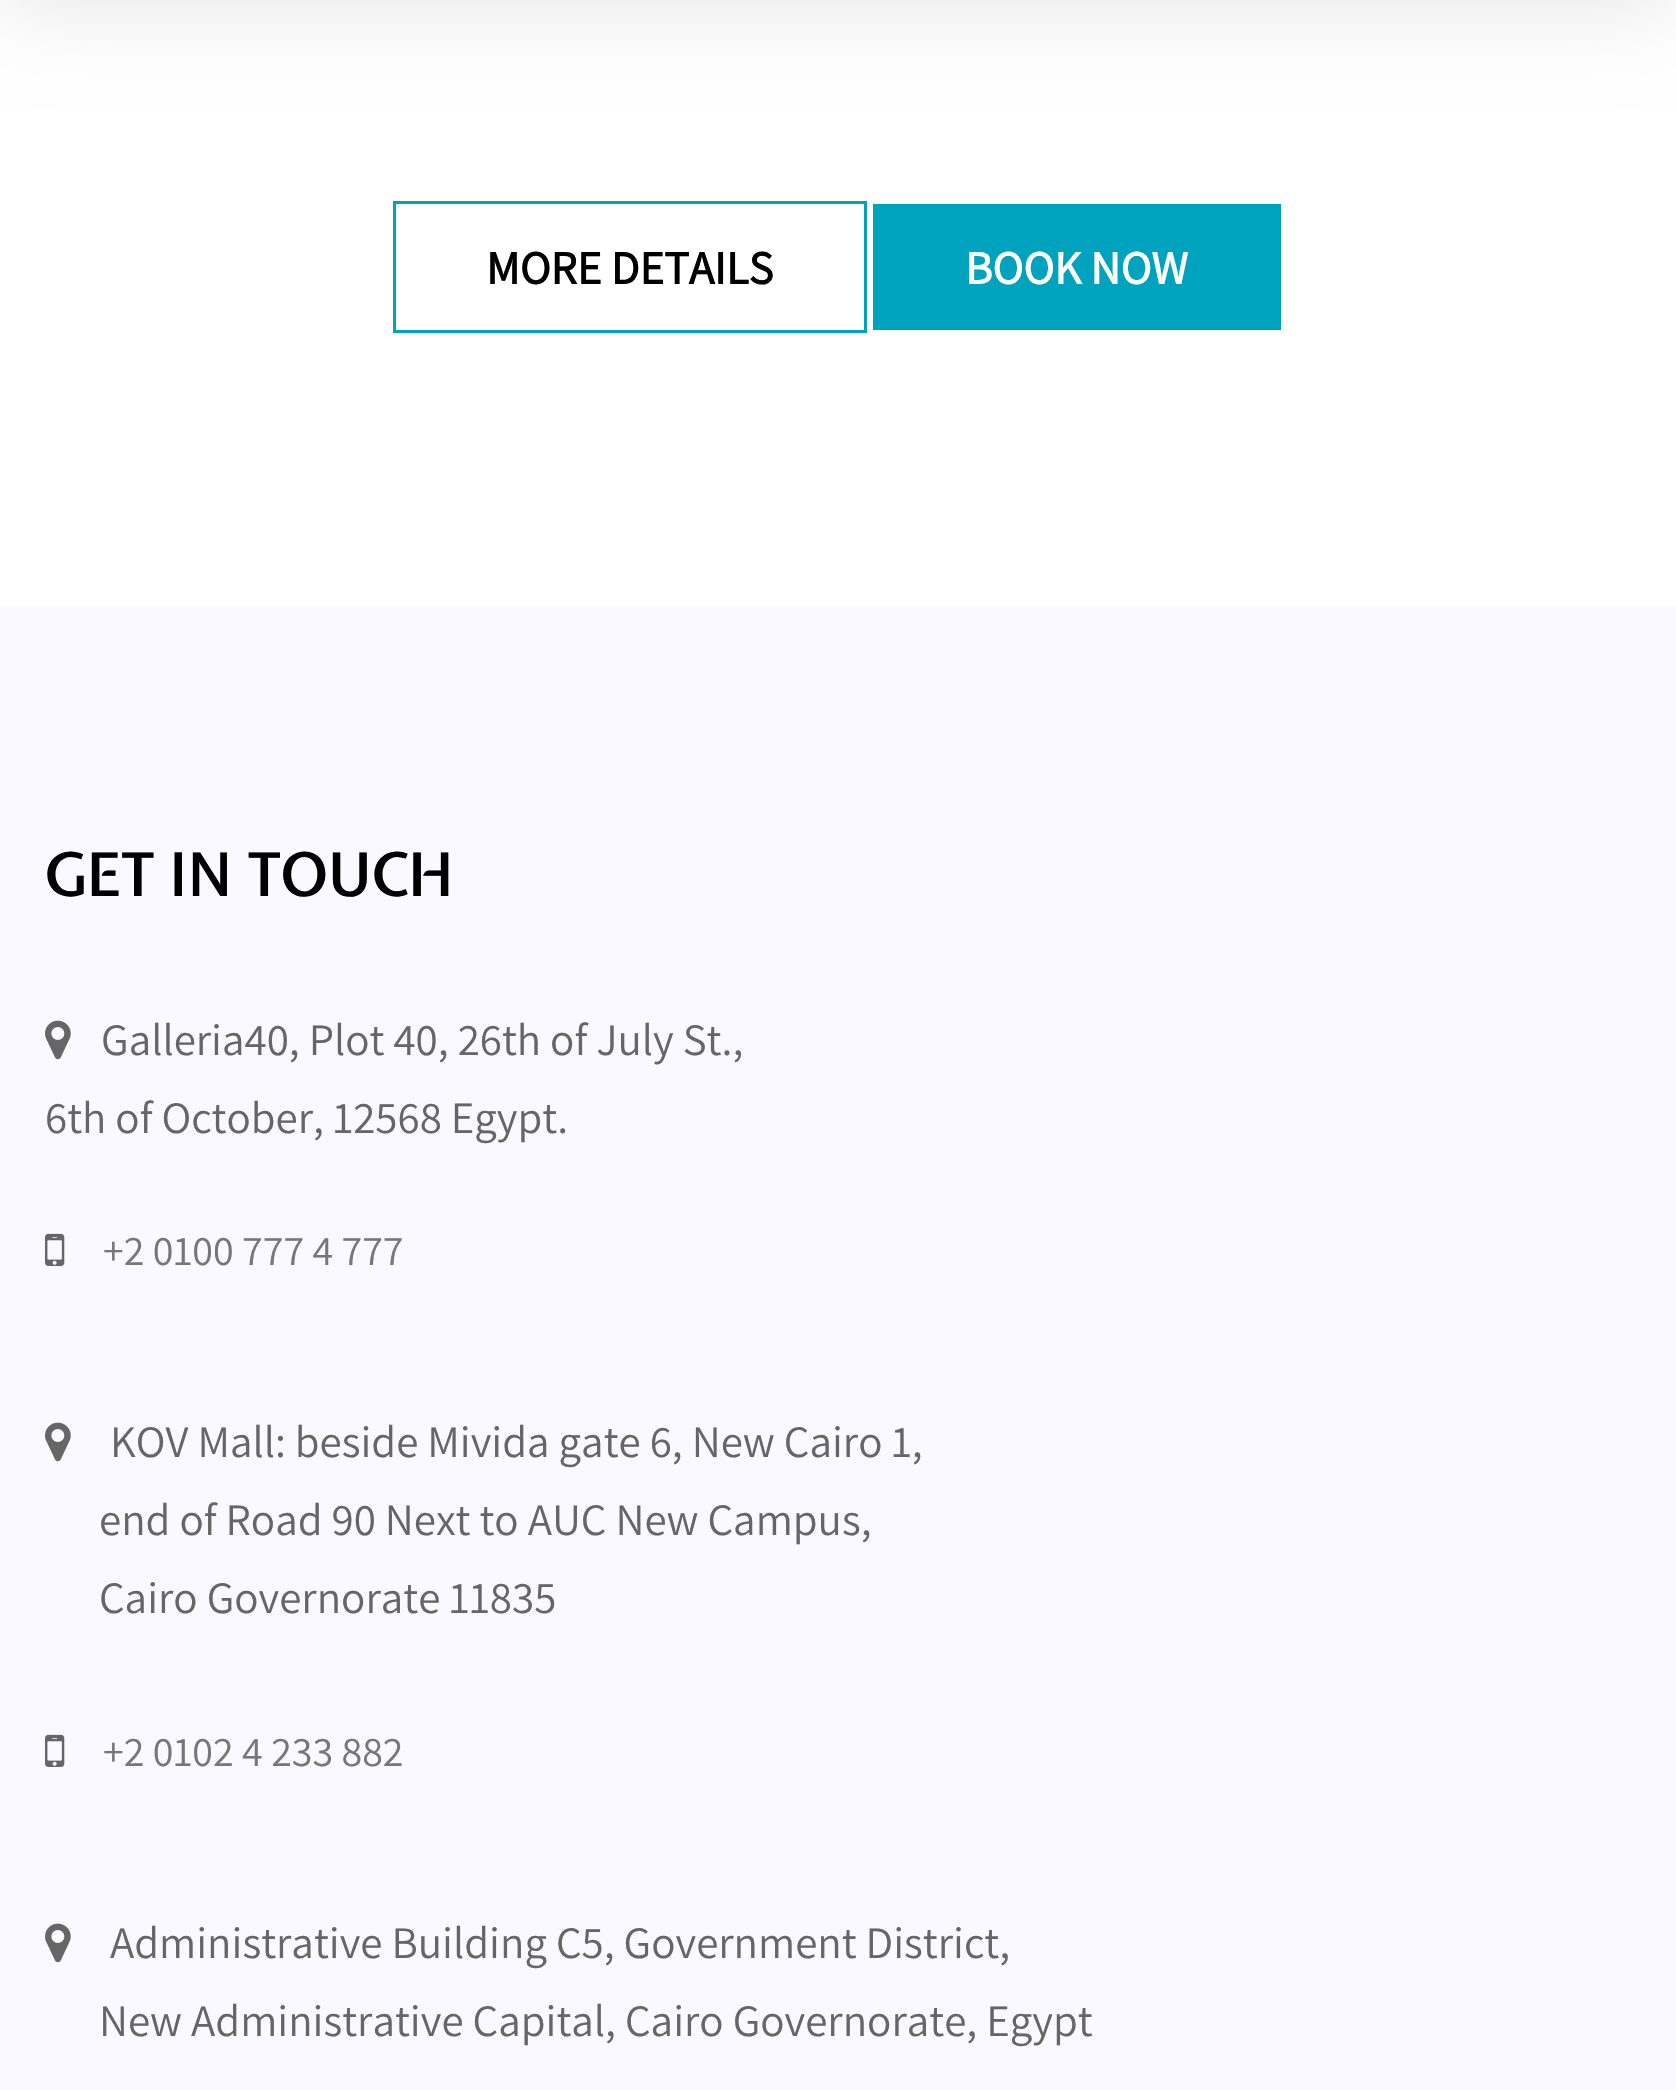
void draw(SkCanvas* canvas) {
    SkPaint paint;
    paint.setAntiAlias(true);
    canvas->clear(0xFFFFFFFF);
    paint.setColor(0x1A000000);
    paint.setMaskFilter(SkMaskFilter::MakeBlur(kNormal_SkBlurStyle, 45));
    canvas->drawRect(SkRect::MakeXYWH(0, -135, 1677, 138), paint);
    paint.setMaskFilter(nullptr);
    paint.setStyle(SkPaint::kStroke_Style);
    paint.setStrokeWidth(3);
    paint.setColor(0xFF00A3BE);
    canvas->drawRect(SkRect::MakeXYWH(394.5f, 202.5f, 471, 129), paint);
    SkFont font1(fontMgr->matchFamilyStyle("Assistant", SkFontStyle::Bold()), 46.75f);
    font1.setSubpixel(true);
    paint.setStyle(SkPaint::kFill_Style);
    paint.setColor(0xFF000000);
    canvas->drawString("MORE DETAILS", 486, 284, font1, paint);
    paint.setColor(0xFF00A3BE);
    canvas->drawRect(SkRect::MakeXYWH(873, 204, 408, 126), paint);
    paint.setColor(0xFFFFFFFF);
    canvas->drawString("BOOK NOW", 965, 284, font1, paint);
    paint.setColor(0xFFF9F9FF);
    canvas->drawRect(SkRect::MakeXYWH(0, 606, 1676, 1484), paint);
    SkFont font2(fontMgr->matchFamilyStyle("Expletus Sans", SkFontStyle(600, SkFontStyle::kNormal_Width, SkFontStyle::kUpright_Slant)), 60);
    font2.setSubpixel(true);
    paint.setColor(0xFF000000);
    canvas->drawString("GET IN TOUCH", 45, 896, font2, paint);
    canvas->drawImageRect(SkImages::DeferredFromEncodedData(SkData::MakeFromFileName("img1.png")), SkRect::MakeXYWH(45, 1020, 26, 40), SkSamplingOptions());
    SkFont font3(fontMgr->matchFamilyStyle("Assistant", SkFontStyle::Normal()), 45);
    font3.setSubpixel(true);
    paint.setColor(0xFF666666);
    canvas->drawString("Galleria40, Plot 40, 26th of July St.,", 101, 1055, font3, paint);
    canvas->drawString("6th of October, 12568 Egypt.", 45, 1133, font3, paint);
    canvas->drawImageRect(SkImages::DeferredFromEncodedData(SkData::MakeFromFileName("img2.png")), SkRect::MakeXYWH(45, 1233, 20, 33), SkSamplingOptions());
    SkFont font4(fontMgr->matchFamilyStyle("Assistant", SkFontStyle::Normal()), 42);
    font4.setSubpixel(true);
    paint.setColor(0xFF777777);
    canvas->drawString("+2 0100 777 4 777", 103, 1265, font4, paint);
    canvas->drawImageRect(SkImages::DeferredFromEncodedData(SkData::MakeFromFileName("img1.png")), SkRect::MakeXYWH(45, 1422, 26, 40), SkSamplingOptions());
    paint.setColor(0xFF666666);
    canvas->drawString("KOV Mall: beside Mivida gate 6, New Cairo 1,", 110, 1457, font3, paint);
    canvas->drawString("end of Road 90 Next to AUC New Campus,", 99, 1535, font3, paint);
    canvas->drawString("Cairo Governorate 11835", 99, 1613, font3, paint);
    canvas->drawImageRect(SkImages::DeferredFromEncodedData(SkData::MakeFromFileName("img2.png")), SkRect::MakeXYWH(45, 1734, 20, 33), SkSamplingOptions());
    paint.setColor(0xFF777777);
    canvas->drawString("+2 0102 4 233 882", 103, 1766, font4, paint);
    canvas->drawImageRect(SkImages::DeferredFromEncodedData(SkData::MakeFromFileName("img1.png")), SkRect::MakeXYWH(45, 1923, 26, 40), SkSamplingOptions());
    paint.setColor(0xFF666666);
    canvas->drawString("Administrative Building C5, Government District,", 110, 1958, font3, paint);
    canvas->drawString("New Administrative Capital, Cairo Governorate, Egypt", 99, 2036, font3, paint);
}
